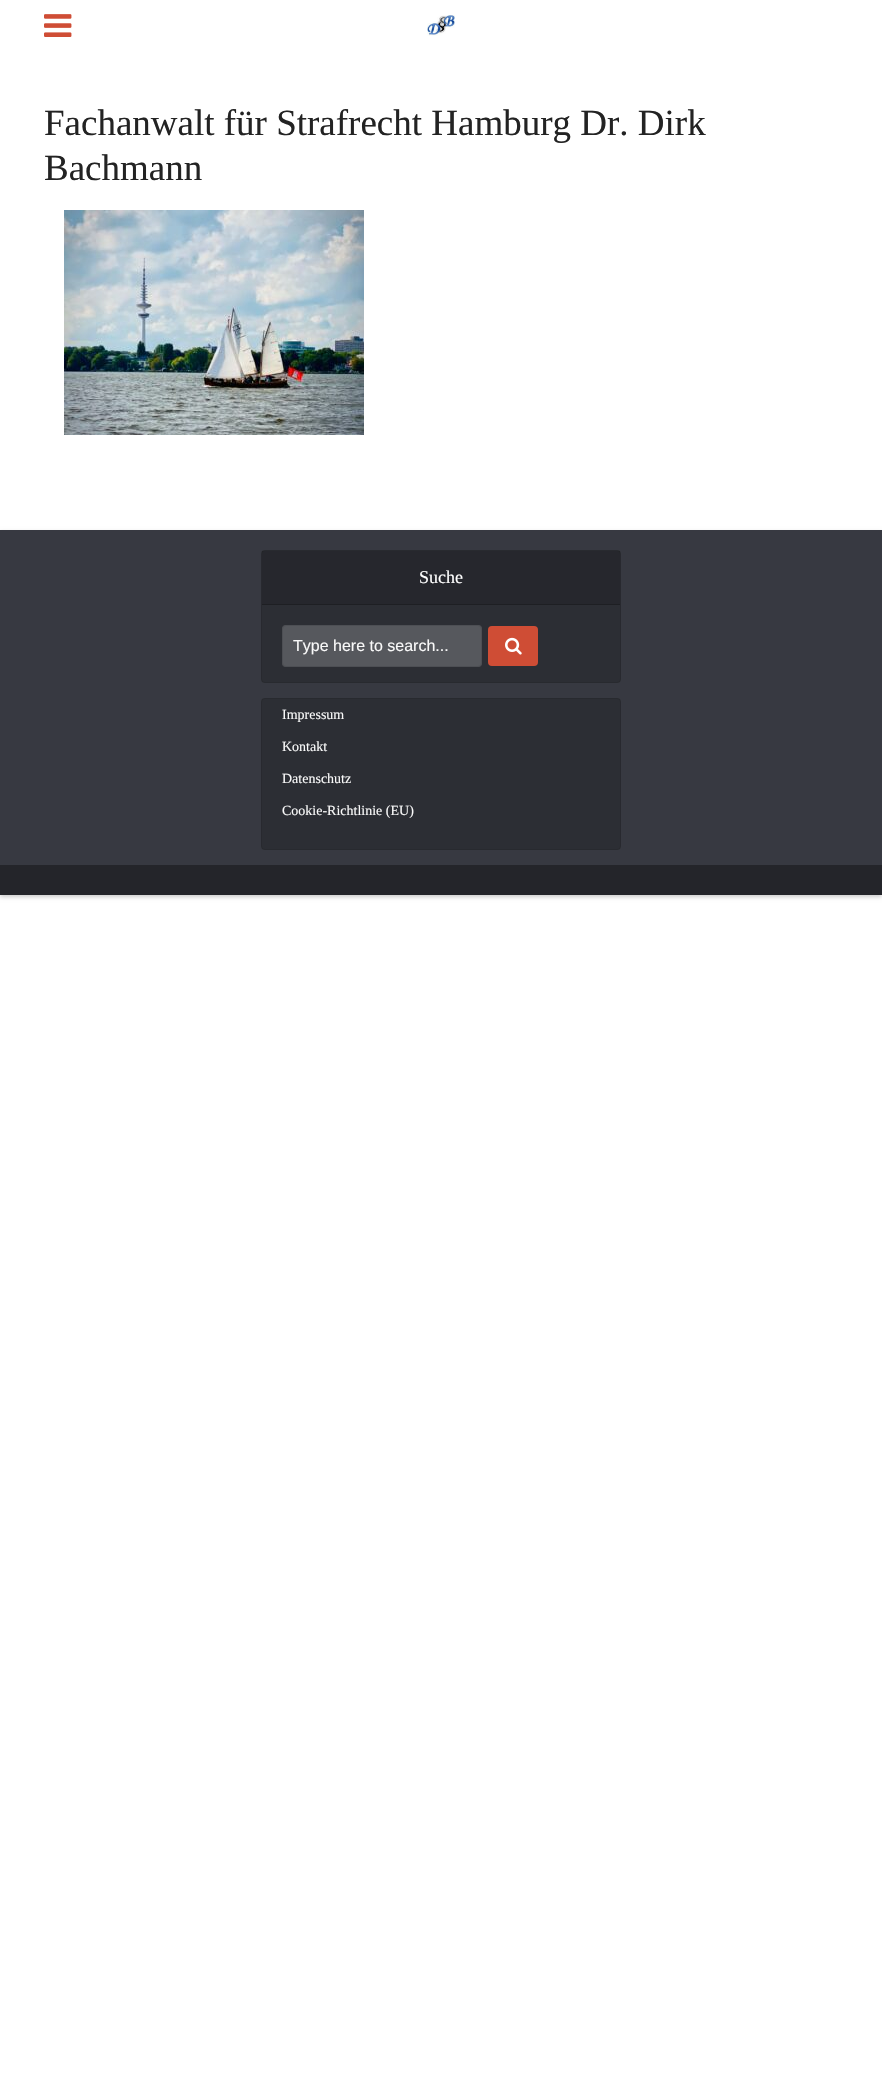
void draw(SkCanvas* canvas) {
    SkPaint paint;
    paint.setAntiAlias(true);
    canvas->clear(0xFFFFFFFF);
    canvas->drawImageRect(SkImages::DeferredFromEncodedData(SkData::MakeFromFileName("img1.png")), SkRect::MakeXYWH(44, 14, 28, 23), SkSamplingOptions());
    canvas->drawImageRect(SkImages::DeferredFromEncodedData(SkData::MakeFromFileName("img2.png")), SkRect::MakeXYWH(427, 15, 28, 21), SkSamplingOptions());
    SkFont font1(fontMgr->matchFamilyStyle("Liberation Serif", SkFontStyle::Normal()), 37);
    font1.setSubpixel(true);
    paint.setColor(0xFF232323);
    canvas->drawString("Fachanwalt für Strafrecht Hamburg Dr. Dirk", 44, 135, font1, paint);
    canvas->drawString("Bachmann", 44, 180, font1, paint);
    canvas->drawImageRect(SkImages::DeferredFromEncodedData(SkData::MakeFromFileName("img3.png")), SkRect::MakeXYWH(64, 210, 300, 225), SkSamplingOptions());
    paint.setColor(0x33000000);
    paint.setMaskFilter(SkMaskFilter::MakeBlur(kNormal_SkBlurStyle, 2));
    canvas->drawRect(SkRect::MakeXYWH(0, 532, 882, 365), paint);
    paint.setMaskFilter(nullptr);
    paint.setColor(0xFF373941);
    canvas->drawRect(SkRect::MakeXYWH(0, 530, 882, 335), paint);
    paint.setColor(0xFF2C2E34);
    canvas->drawRoundRect(SkRect::MakeXYWH(261, 550, 360, 133), 4, 4, paint);
    paint.setStyle(SkPaint::kStroke_Style);
    paint.setStrokeWidth(1);
    paint.setColor(0x1A000000);
    canvas->drawRoundRect(SkRect::MakeXYWH(261.5f, 550.5f, 359, 132), 3.5f, 3.5f, paint);
    paint.setStyle(SkPaint::kFill_Style);
    paint.setColor(0x26000000);
    canvas->drawRect(SkRect::MakeXYWH(262, 551, 358, 53), paint);
    paint.setColor(0xFF1E1F23);
    canvas->drawRect(SkRect::MakeXYWH(262, 604, 358, 1), paint);
    SkFont font2(fontMgr->matchFamilyStyle("Liberation Serif", SkFontStyle::Normal()), 18);
    font2.setSubpixel(true);
    paint.setColor(0xFFFFFFFF);
    canvas->drawString("Suche", 419, 583, font2, paint);
    paint.setColor(0xFF56585D);
    canvas->drawRoundRect(SkRect::MakeXYWH(282, 625, 200, 42), 4, 4, paint);
    paint.setStyle(SkPaint::kStroke_Style);
    paint.setColor(0x1A000000);
    canvas->drawRoundRect(SkRect::MakeXYWH(282.5f, 625.5f, 199, 41), 3.5f, 3.5f, paint);
    SkFont font3(fontMgr->matchFamilyStyle("Liberation Sans", SkFontStyle::Normal()), 16);
    font3.setSubpixel(true);
    paint.setStyle(SkPaint::kFill_Style);
    paint.setColor(0xFFF9F9F9);
    canvas->drawString("Type here to search...", 293, 651, font3, paint);
    paint.setColor(0xFFCF4D35);
    canvas->drawRoundRect(SkRect::MakeXYWH(488, 626, 50, 40), 4, 4, paint);
    canvas->drawImageRect(SkImages::DeferredFromEncodedData(SkData::MakeFromFileName("img4.png")), SkRect::MakeXYWH(505, 637, 17, 18), SkSamplingOptions());
    paint.setColor(0xFF2C2E34);
    canvas->drawRoundRect(SkRect::MakeXYWH(261, 698, 360, 152), 4, 4, paint);
    paint.setStyle(SkPaint::kStroke_Style);
    paint.setColor(0x1A000000);
    canvas->drawRoundRect(SkRect::MakeXYWH(261.5f, 698.5f, 359, 151), 3.5f, 3.5f, paint);
    SkFont font4(fontMgr->matchFamilyStyle("Liberation Serif", SkFontStyle::Normal()), 14);
    font4.setSubpixel(true);
    paint.setStyle(SkPaint::kFill_Style);
    paint.setColor(0xFFF9F9F9);
    canvas->drawString("Impressum", 282, 719, font4, paint);
    canvas->drawString("Kontakt", 282, 751, font4, paint);
    canvas->drawString("Datenschutz", 282, 783, font4, paint);
    canvas->drawString("Cookie-Richtlinie (EU)", 282, 815, font4, paint);
    paint.setColor(0xFF24252A);
    canvas->drawRect(SkRect::MakeXYWH(0, 865, 882, 30), paint);
}
